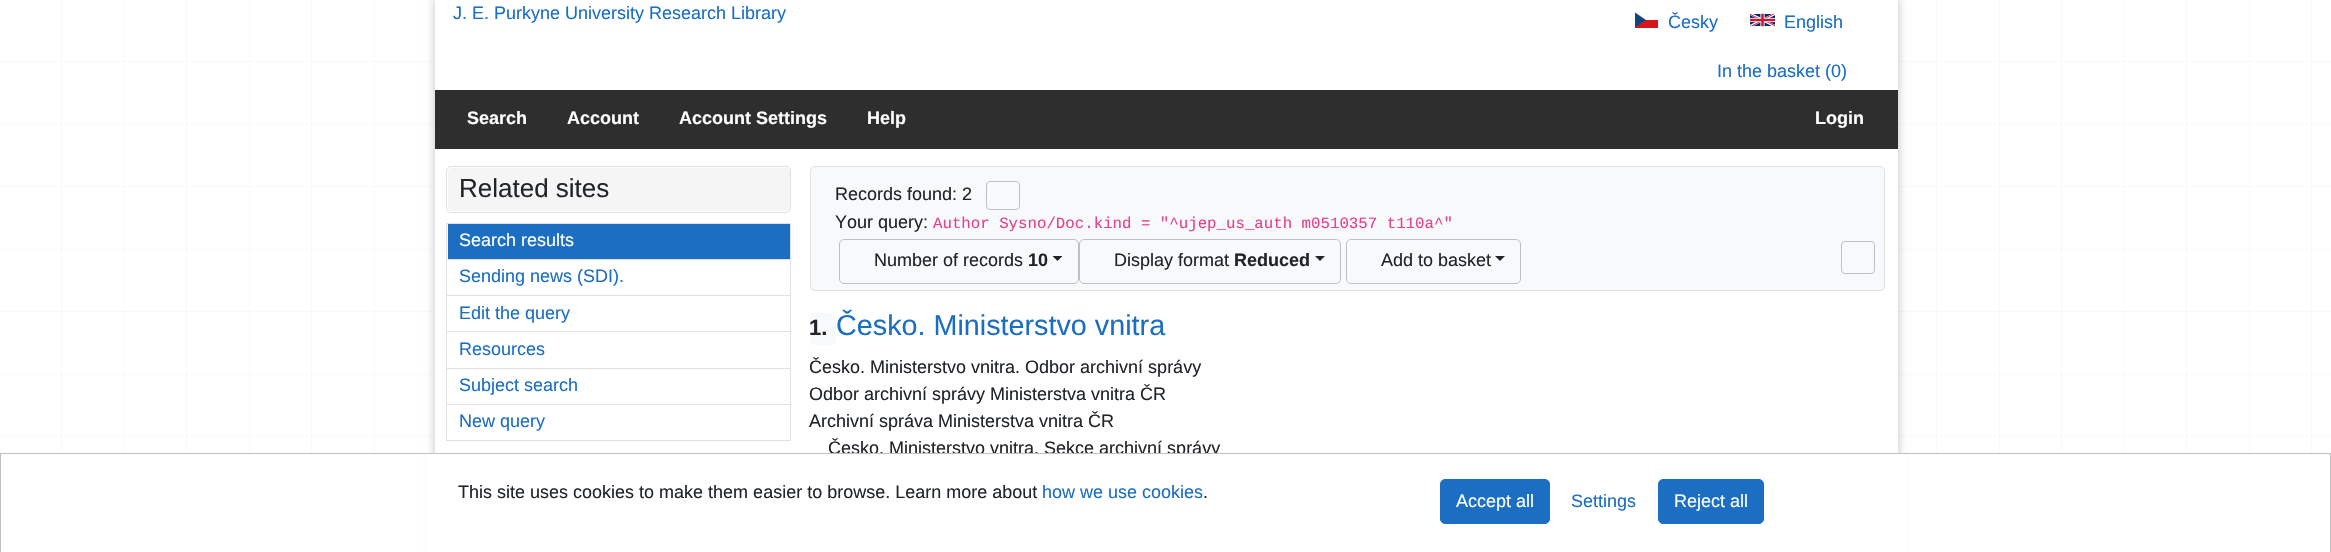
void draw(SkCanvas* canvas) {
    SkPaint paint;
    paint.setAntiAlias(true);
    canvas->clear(0xFFFFFFFF);
    canvas->drawImageRect(SkImages::DeferredFromEncodedData(SkData::MakeFromFileName("img1.png")), SkRect::MakeXYWH(61, 0, 2251, 453), SkSamplingOptions());
    paint.setColor(0xFFF8F9FA);
    canvas->drawRect(SkRect::MakeXYWH(0, 61, 2331, 1), paint);
    canvas->drawRect(SkRect::MakeXYWH(0, 124, 2331, 1), paint);
    canvas->drawRect(SkRect::MakeXYWH(0, 186, 2331, 1), paint);
    canvas->drawRect(SkRect::MakeXYWH(0, 249, 2331, 1), paint);
    canvas->drawRect(SkRect::MakeXYWH(0, 311, 2331, 1), paint);
    canvas->drawRect(SkRect::MakeXYWH(0, 374, 2331, 1), paint);
    canvas->drawRect(SkRect::MakeXYWH(0, 436, 2331, 1), paint);
    paint.setColor(0x33000000);
    paint.setMaskFilter(SkMaskFilter::MakeBlur(kNormal_SkBlurStyle, 4));
    canvas->drawRect(SkRect::MakeXYWH(434, -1, 1465, 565), paint);
    paint.setMaskFilter(nullptr);
    paint.setColor(0xFFFFFFFF);
    canvas->drawRect(SkRect::MakeXYWH(435, 0, 1463, 453), paint);
    SkFont font1(fontMgr->matchFamilyStyle("Liberation Sans", SkFontStyle::Normal()), 18);
    font1.setSubpixel(true);
    paint.setColor(0xFF1B6EC2);
    canvas->drawString("J. E. Purkyne University Research Library", 453, 19, font1, paint);
    paint.setColor(0xFFD7141A);
    canvas->drawRect(SkRect::MakeXYWH(1635, 20, 23, 8), paint);
    paint.setColor(0xFF11457E);
    canvas->drawPath(SkPathBuilder().moveTo(1646, 20).lineTo(1635, 12.5f).lineTo(1635, 27.5f).close().detach(), paint);
    paint.setColor(0xFF1B6EC2);
    canvas->drawString("Česky", 1668, 28, font1, paint);
    canvas->drawImageRect(SkImages::DeferredFromEncodedData(SkData::MakeFromFileName("img2.png")), SkRect::MakeXYWH(1750, 13, 25, 14), SkSamplingOptions());
    canvas->drawString("English", 1784, 28, font1, paint);
    canvas->drawString("In the basket (0)", 1717, 77, font1, paint);
    paint.setColor(0xFF2E2E2E);
    canvas->drawRect(SkRect::MakeXYWH(435, 90, 1463, 59), paint);
    SkFont font2(fontMgr->matchFamilyStyle("Liberation Sans", SkFontStyle::Bold()), 18);
    font2.setSubpixel(true);
    paint.setColor(0xFFFFFFFF);
    canvas->drawString("Search", 467, 124, font2, paint);
    canvas->drawString("Account", 567, 124, font2, paint);
    canvas->drawString("Account Settings", 679, 124, font2, paint);
    canvas->drawString("Help", 867, 124, font2, paint);
    canvas->drawString("Login", 1815, 124, font2, paint);
    paint.setColor(0xFFF5F5F5);
    canvas->drawRoundRect(SkRect::MakeXYWH(448, 168, 342, 43), 4, 4, paint);
    paint.setStyle(SkPaint::kStroke_Style);
    paint.setStrokeWidth(1);
    paint.setColor(0xFFDEE2E6);
    canvas->drawRoundRect(SkRect::MakeXYWH(446.5f, 166.5f, 344, 46), 4.5f, 4.5f, paint);
    SkFont font3(fontMgr->matchFamilyStyle("Liberation Sans", SkFontStyle::Normal()), 26);
    font3.setSubpixel(true);
    paint.setStyle(SkPaint::kFill_Style);
    paint.setColor(0xFF212529);
    canvas->drawString("Related sites", 459, 197, font3, paint);
    paint.setColor(0xFFDEE2E6);
    canvas->drawRect(SkRect::MakeXYWH(446, 223, 345, 1), paint);
    canvas->drawRect(SkRect::MakeXYWH(790, 223, 1, 36), paint);
    canvas->drawRect(SkRect::MakeXYWH(446, 223, 1, 36), paint);
    paint.setColor(0xFF1B6EC2);
    canvas->drawRect(SkRect::MakeXYWH(448, 224, 342, 35), paint);
    paint.setColor(0xFFFFFFFF);
    canvas->drawString("Search results", 459, 246, font1, paint);
    paint.setColor(0xFFDEE2E6);
    canvas->drawRect(SkRect::MakeXYWH(446, 259, 345, 1), paint);
    canvas->drawRect(SkRect::MakeXYWH(790, 259, 1, 36), paint);
    canvas->drawRect(SkRect::MakeXYWH(446, 259, 1, 36), paint);
    paint.setColor(0xFF1B6EC2);
    canvas->drawString("Sending news (SDI).", 459, 282, font1, paint);
    paint.setColor(0xFFDEE2E6);
    canvas->drawRect(SkRect::MakeXYWH(446, 295, 345, 1), paint);
    canvas->drawRect(SkRect::MakeXYWH(790, 295, 1, 36), paint);
    canvas->drawRect(SkRect::MakeXYWH(446, 295, 1, 36), paint);
    paint.setColor(0xFF1B6EC2);
    canvas->drawString("Edit the query", 459, 319, font1, paint);
    paint.setColor(0xFFDEE2E6);
    canvas->drawRect(SkRect::MakeXYWH(446, 331, 345, 1), paint);
    canvas->drawRect(SkRect::MakeXYWH(790, 331, 1, 37), paint);
    canvas->drawRect(SkRect::MakeXYWH(446, 331, 1, 37), paint);
    paint.setColor(0xFF1B6EC2);
    canvas->drawString("Resources", 459, 355, font1, paint);
    paint.setColor(0xFFDEE2E6);
    canvas->drawRect(SkRect::MakeXYWH(446, 368, 345, 1), paint);
    canvas->drawRect(SkRect::MakeXYWH(790, 368, 1, 36), paint);
    canvas->drawRect(SkRect::MakeXYWH(446, 368, 1, 36), paint);
    paint.setColor(0xFF1B6EC2);
    canvas->drawString("Subject search", 459, 391, font1, paint);
    paint.setStyle(SkPaint::kStroke_Style);
    paint.setColor(0xFFDEE2E6);
    canvas->drawRect(SkRect::MakeXYWH(446.5f, 404.5f, 344, 36), paint);
    paint.setStyle(SkPaint::kFill_Style);
    paint.setColor(0xFF1B6EC2);
    canvas->drawString("New query", 459, 427, font1, paint);
    paint.setColor(0xFFF8F9FA);
    canvas->drawRoundRect(SkRect::MakeXYWH(810, 166, 1075, 125), 5, 5, paint);
    paint.setStyle(SkPaint::kStroke_Style);
    paint.setColor(0x1F333333);
    canvas->drawRoundRect(SkRect::MakeXYWH(810.5f, 166.5f, 1074, 124), 4.5f, 4.5f, paint);
    paint.setStyle(SkPaint::kFill_Style);
    paint.setColor(0xFF212529);
    canvas->drawString("Records found: 2", 835, 200, font1, paint);
    paint.setStyle(SkPaint::kStroke_Style);
    paint.setColor(0xFFC0C0C0);
    canvas->drawRoundRect(SkRect::MakeXYWH(986.5f, 181.5f, 33, 28), 3.5f, 3.5f, paint);
    paint.setStyle(SkPaint::kFill_Style);
    paint.setColor(0xFF212529);
    canvas->drawString("Your query:", 835, 228, font1, paint);
    SkFont font4(fontMgr->matchFamilyStyle("Liberation Mono", SkFontStyle::Normal()), 15.75f);
    font4.setSubpixel(true);
    paint.setColor(0xFFE83E8C);
    canvas->drawString("Author Sysno/Doc.kind = \"^ujep_us_auth m0510357 t110a^\"", 933, 228, font4, paint);
    paint.setStyle(SkPaint::kStroke_Style);
    paint.setColor(0xFFC0C0C0);
    canvas->drawRoundRect(SkRect::MakeXYWH(839.5f, 239.5f, 239, 44), 4.5f, 4.5f, paint);
    paint.setStyle(SkPaint::kFill_Style);
    paint.setColor(0xFF212529);
    canvas->drawString("Number of records", 874, 266, font1, paint);
    canvas->drawString("10", 1028, 266, font2, paint);
    canvas->drawPath(SkPathBuilder().moveTo(1052.5f, 256).lineTo(1062.5f, 256).lineTo(1057.5f, 261).close().detach(), paint);
    paint.setStyle(SkPaint::kStroke_Style);
    paint.setColor(0xFFC0C0C0);
    canvas->drawRoundRect(SkRect::MakeXYWH(1079.5f, 239.5f, 261, 44), 4.5f, 4.5f, paint);
    paint.setStyle(SkPaint::kFill_Style);
    paint.setColor(0xFF212529);
    canvas->drawString("Display format", 1114, 266, font1, paint);
    canvas->drawString("Reduced", 1234, 266, font2, paint);
    canvas->drawPath(SkPathBuilder().moveTo(1315, 256).lineTo(1325, 256).lineTo(1320, 261).close().detach(), paint);
    paint.setStyle(SkPaint::kStroke_Style);
    paint.setColor(0xFFC0C0C0);
    canvas->drawRoundRect(SkRect::MakeXYWH(1346.5f, 239.5f, 174, 44), 4.5f, 4.5f, paint);
    paint.setStyle(SkPaint::kFill_Style);
    paint.setColor(0xFF212529);
    canvas->drawString("Add to basket", 1381, 266, font1, paint);
    canvas->drawPath(SkPathBuilder().moveTo(1495, 256).lineTo(1505, 256).lineTo(1500, 261).close().detach(), paint);
    paint.setStyle(SkPaint::kStroke_Style);
    paint.setColor(0xFFC0C0C0);
    canvas->drawRoundRect(SkRect::MakeXYWH(1841.5f, 241.5f, 33, 32), 3.5f, 3.5f, paint);
    paint.setStyle(SkPaint::kFill_Style);
    paint.setColor(0xFFF8F9FA);
    canvas->drawRoundRect(SkRect::MakeXYWH(810, 313, 26, 32), 5, 5, paint);
    SkFont font5(fontMgr->matchFamilyStyle("Liberation Sans", SkFontStyle::Bold()), 22);
    font5.setSubpixel(true);
    paint.setColor(0xFF212529);
    canvas->drawString("1.", 809, 335, font5, paint);
    SkFont font6(fontMgr->matchFamilyStyle("Liberation Sans", SkFontStyle::Normal()), 28.75f);
    font6.setSubpixel(true);
    paint.setColor(0xFF1B6EC2);
    canvas->drawString("Česko. Ministerstvo vnitra", 836, 335, font6, paint);
    paint.setColor(0xFF212529);
    canvas->drawString("Česko. Ministerstvo vnitra. Odbor archivní správy", 809, 373, font1, paint);
    canvas->drawString("Odbor archivní správy Ministerstva vnitra ČR", 809, 400, font1, paint);
    canvas->drawString("Archivní správa Ministerstva vnitra ČR", 809, 427, font1, paint);
    canvas->drawString("Česko. Ministerstvo vnitra. Sekce archivní správy", 828, 454, font1, paint);
    paint.setColor(0xFFFFFFFF);
    canvas->drawRect(SkRect::MakeXYWH(427, 454, 1479, 98), paint);
    paint.setStyle(SkPaint::kStroke_Style);
    paint.setColor(0xFFC0C0C0);
    canvas->drawRect(SkRect::MakeXYWH(0.5f, 453.5f, 2330, 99), paint);
    paint.setStyle(SkPaint::kFill_Style);
    paint.setColor(0xFF212529);
    canvas->drawString("This site uses cookies to make them easier to browse. Learn more about", 458, 498, font1, paint);
    paint.setColor(0xFF1B6EC2);
    canvas->drawString("how we use cookies", 1042, 498, font1, paint);
    paint.setColor(0xFF212529);
    canvas->drawString(".", 1203, 498, font1, paint);
    paint.setColor(0xFF1B6EC2);
    canvas->drawRoundRect(SkRect::MakeXYWH(1440.5f, 479.5f, 109, 44), 4.5f, 4.5f, paint);
    paint.setStyle(SkPaint::kStroke_Style);
    canvas->drawRoundRect(SkRect::MakeXYWH(1440.5f, 479.5f, 109, 44), 4.5f, 4.5f, paint);
    paint.setStyle(SkPaint::kFill_Style);
    paint.setColor(0xFFFFFFFF);
    canvas->drawString("Accept all", 1456, 507, font1, paint);
    paint.setColor(0xFF1B6EC2);
    canvas->drawString("Settings", 1571, 507, font1, paint);
    canvas->drawRoundRect(SkRect::MakeXYWH(1658.5f, 479.5f, 105, 44), 4.5f, 4.5f, paint);
    paint.setStyle(SkPaint::kStroke_Style);
    canvas->drawRoundRect(SkRect::MakeXYWH(1658.5f, 479.5f, 105, 44), 4.5f, 4.5f, paint);
    paint.setStyle(SkPaint::kFill_Style);
    paint.setColor(0xFFFFFFFF);
    canvas->drawString("Reject all", 1674, 507, font1, paint);
}
